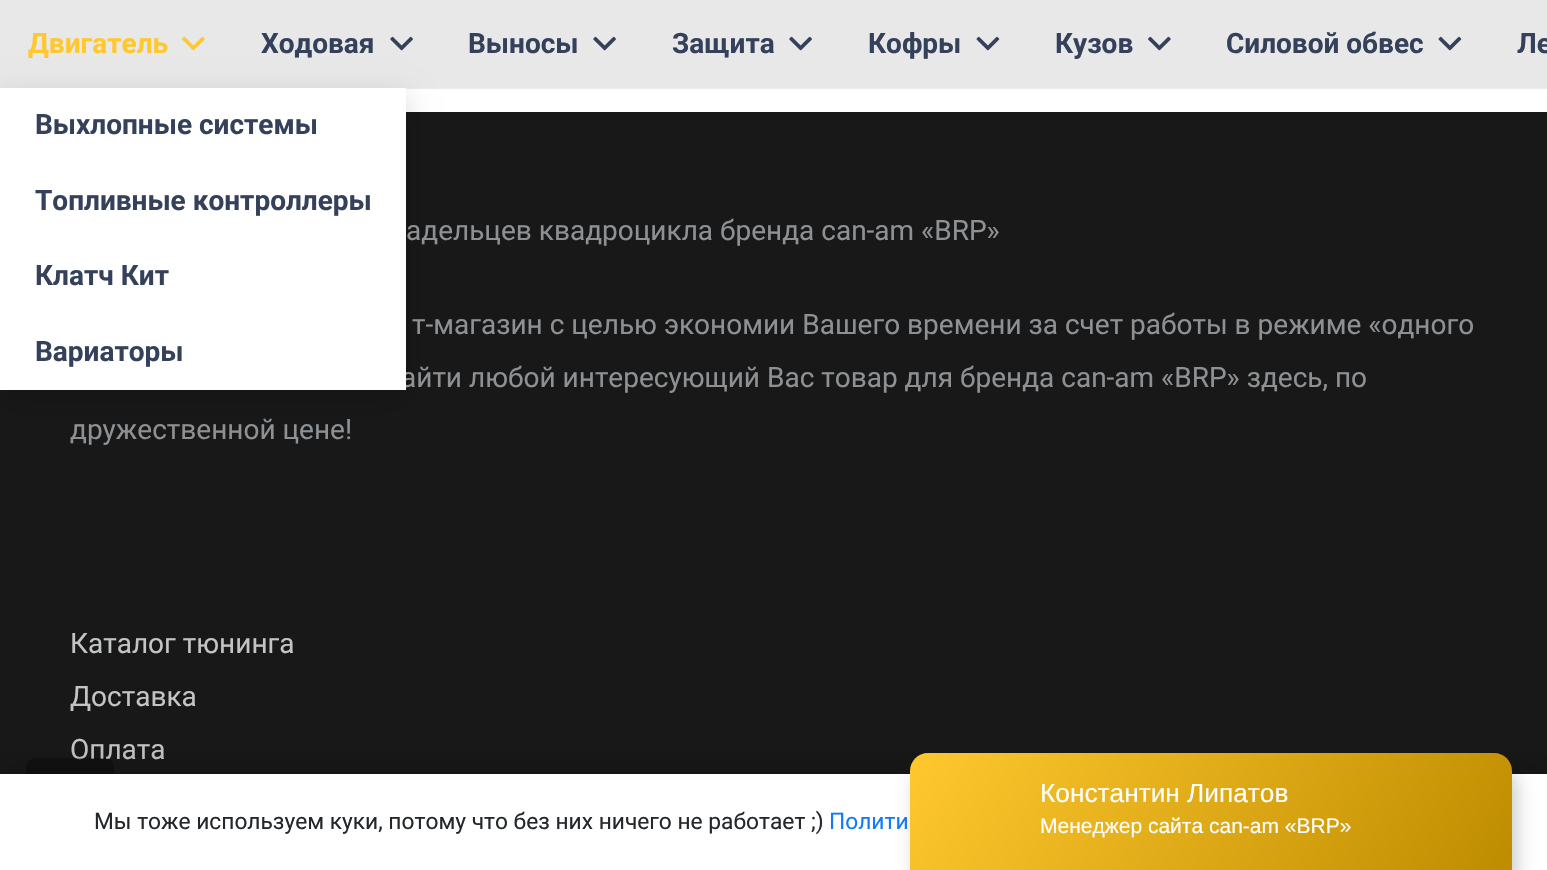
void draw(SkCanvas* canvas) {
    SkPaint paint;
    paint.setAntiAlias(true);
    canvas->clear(0xFFFFFFFF);
    paint.setColor(0xFFEBEBEB);
    canvas->drawRect(SkRect::MakeXYWH(406, 88, 1141, 1), paint);
    paint.setColor(0xFFE8E8E8);
    canvas->drawRect(SkRect::MakeXYWH(0, 0, 1547, 88), paint);
    SkFont font1(fontMgr->matchFamilyStyle("Roboto", SkFontStyle::Bold()), 28);
    font1.setSubpixel(true);
    paint.setColor(0xFFFFC82F);
    canvas->drawString("Двигатель", 28, 53, font1, paint);
    canvas->drawImageRect(SkImages::DeferredFromEncodedData(SkData::MakeFromFileName("img1.png")), SkRect::MakeXYWH(182, 36, 23, 15), SkSamplingOptions());
    paint.setColor(0xFF181818);
    canvas->drawRect(SkRect::MakeXYWH(0, 112, 1547, 662), paint);
    paint.setColor(0x26000000);
    paint.setMaskFilter(SkMaskFilter::MakeBlur(kNormal_SkBlurStyle, 13));
    canvas->drawRect(SkRect::MakeXYWH(0, 96, 406, 303), paint);
    paint.setMaskFilter(nullptr);
    SkFont font2(fontMgr->matchFamilyStyle("Roboto", SkFontStyle::Normal()), 28);
    font2.setSubpixel(true);
    paint.setColor(0xFF8E9194);
    canvas->drawString("айти любой интересующий Вас товар для бренда can-am «BRP» здесь, по", 401, 387, font2, paint);
    paint.setColor(0xFFFFFFFF);
    canvas->drawRect(SkRect::MakeXYWH(0, 88, 406, 302), paint);
    paint.setColor(0xFF35415B);
    canvas->drawString("Выхлопные системы", 35, 134, font1, paint);
    canvas->drawString("Топливные контроллеры", 35, 210, font1, paint);
    canvas->drawString("Клатч Кит", 35, 285, font1, paint);
    canvas->drawString("Вариаторы", 35, 361, font1, paint);
    canvas->drawString("Защита", 672, 53, font1, paint);
    canvas->drawImageRect(SkImages::DeferredFromEncodedData(SkData::MakeFromFileName("img2.png")), SkRect::MakeXYWH(789, 36, 23, 15), SkSamplingOptions());
    canvas->drawString("Кофры", 868, 53, font1, paint);
    canvas->drawImageRect(SkImages::DeferredFromEncodedData(SkData::MakeFromFileName("img3.png")), SkRect::MakeXYWH(976, 36, 24, 15), SkSamplingOptions());
    canvas->drawString("Силовой обвес", 1226, 53, font1, paint);
    canvas->drawImageRect(SkImages::DeferredFromEncodedData(SkData::MakeFromFileName("img3.png")), SkRect::MakeXYWH(1438, 36, 24, 15), SkSamplingOptions());
    canvas->drawString("Ходовая", 261, 53, font1, paint);
    canvas->drawImageRect(SkImages::DeferredFromEncodedData(SkData::MakeFromFileName("img2.png")), SkRect::MakeXYWH(390, 36, 23, 15), SkSamplingOptions());
    canvas->drawString("Выносы", 468, 53, font1, paint);
    canvas->drawImageRect(SkImages::DeferredFromEncodedData(SkData::MakeFromFileName("img2.png")), SkRect::MakeXYWH(593, 36, 23, 15), SkSamplingOptions());
    canvas->drawString("Кузов", 1055, 53, font1, paint);
    canvas->drawImageRect(SkImages::DeferredFromEncodedData(SkData::MakeFromFileName("img4.png")), SkRect::MakeXYWH(1148, 36, 23, 15), SkSamplingOptions());
    canvas->drawString("Ле", 1517, 53, font1, paint);
    paint.setColor(0xFF8E9194);
    canvas->drawString("адельцев квадроцикла бренда can-am «BRP»", 406, 240, font2, paint);
    canvas->drawString("т-магазин с целью экономии Вашего времени за счет работы в режиме «одного", 412, 334, font2, paint);
    canvas->drawString("дружественной цене!", 70, 439, font2, paint);
    paint.setColor(0xFFC2C4C5);
    canvas->drawString("Каталог тюнинга", 70, 653, font2, paint);
    canvas->drawString("Доставка", 70, 706, font2, paint);
    canvas->drawString("Оплата", 70, 759, font2, paint);
    paint.setColor(0x4D000000);
    canvas->drawRoundRect(SkRect::MakeXYWH(26, 758, 88, 87), 9, 9, paint);
    paint.setColor(0x26000000);
    paint.setMaskFilter(SkMaskFilter::MakeBlur(kNormal_SkBlurStyle, 13));
    canvas->drawRect(SkRect::MakeXYWH(0, 765, 1547, 98), paint);
    paint.setMaskFilter(nullptr);
    paint.setColor(0xFFFFFFFF);
    canvas->drawRect(SkRect::MakeXYWH(0, 774, 1547, 96), paint);
    SkFont font3(fontMgr->matchFamilyStyle("Roboto", SkFontStyle::Normal()), 22.75f);
    font3.setSubpixel(true);
    paint.setColor(0xFF25282B);
    canvas->drawString("Мы тоже используем куки, потому что без них ничего не работает ;)", 94, 829, font3, paint);
    paint.setColor(0xFF0F7AFC);
    canvas->drawString("Полити", 829, 829, font3, paint);
    paint.setColor(0x33000000);
    paint.setMaskFilter(SkMaskFilter::MakeBlur(kNormal_SkBlurStyle, 9));
    canvas->drawRoundRect(SkRect::MakeXYWH(915, 770, 602, 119), 18, 18, paint);
    paint.setMaskFilter(nullptr);
    {
        const SkColor colors[] = {0xFFBE8C00, 0xFFFFC82F};
        const float stops[] = {0, 1};
        const SkPoint ends[] = {{1450, 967}, {972, 657}};
        paint.setShader(SkGradientShader::MakeLinear(ends, colors, stops, 2, SkTileMode::kClamp));
        paint.setAlpha(255);
    }
    canvas->drawPath(SkPathBuilder().moveTo(928, 753).lineTo(1494, 753).cubicTo(1504, 753, 1512, 761, 1512, 771).lineTo(1512, 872).lineTo(910, 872).lineTo(910, 771).cubicTo(910, 761, 918, 753, 928, 753).close().detach(), paint);
    SkFont font4(fontMgr->matchFamilyStyle("Liberation Sans", SkFontStyle::Normal()), 26.25f);
    font4.setSubpixel(true);
    paint.setShader(nullptr);
    paint.setColor(0xFFFFFFFF);
    canvas->drawString("Константин Липатов", 1040, 802, font4, paint);
    SkFont font5(fontMgr->matchFamilyStyle("Liberation Sans", SkFontStyle::Normal()), 21);
    font5.setSubpixel(true);
    canvas->drawString("Менеджер сайта can-am «BRP»", 1040, 833, font5, paint);
}
